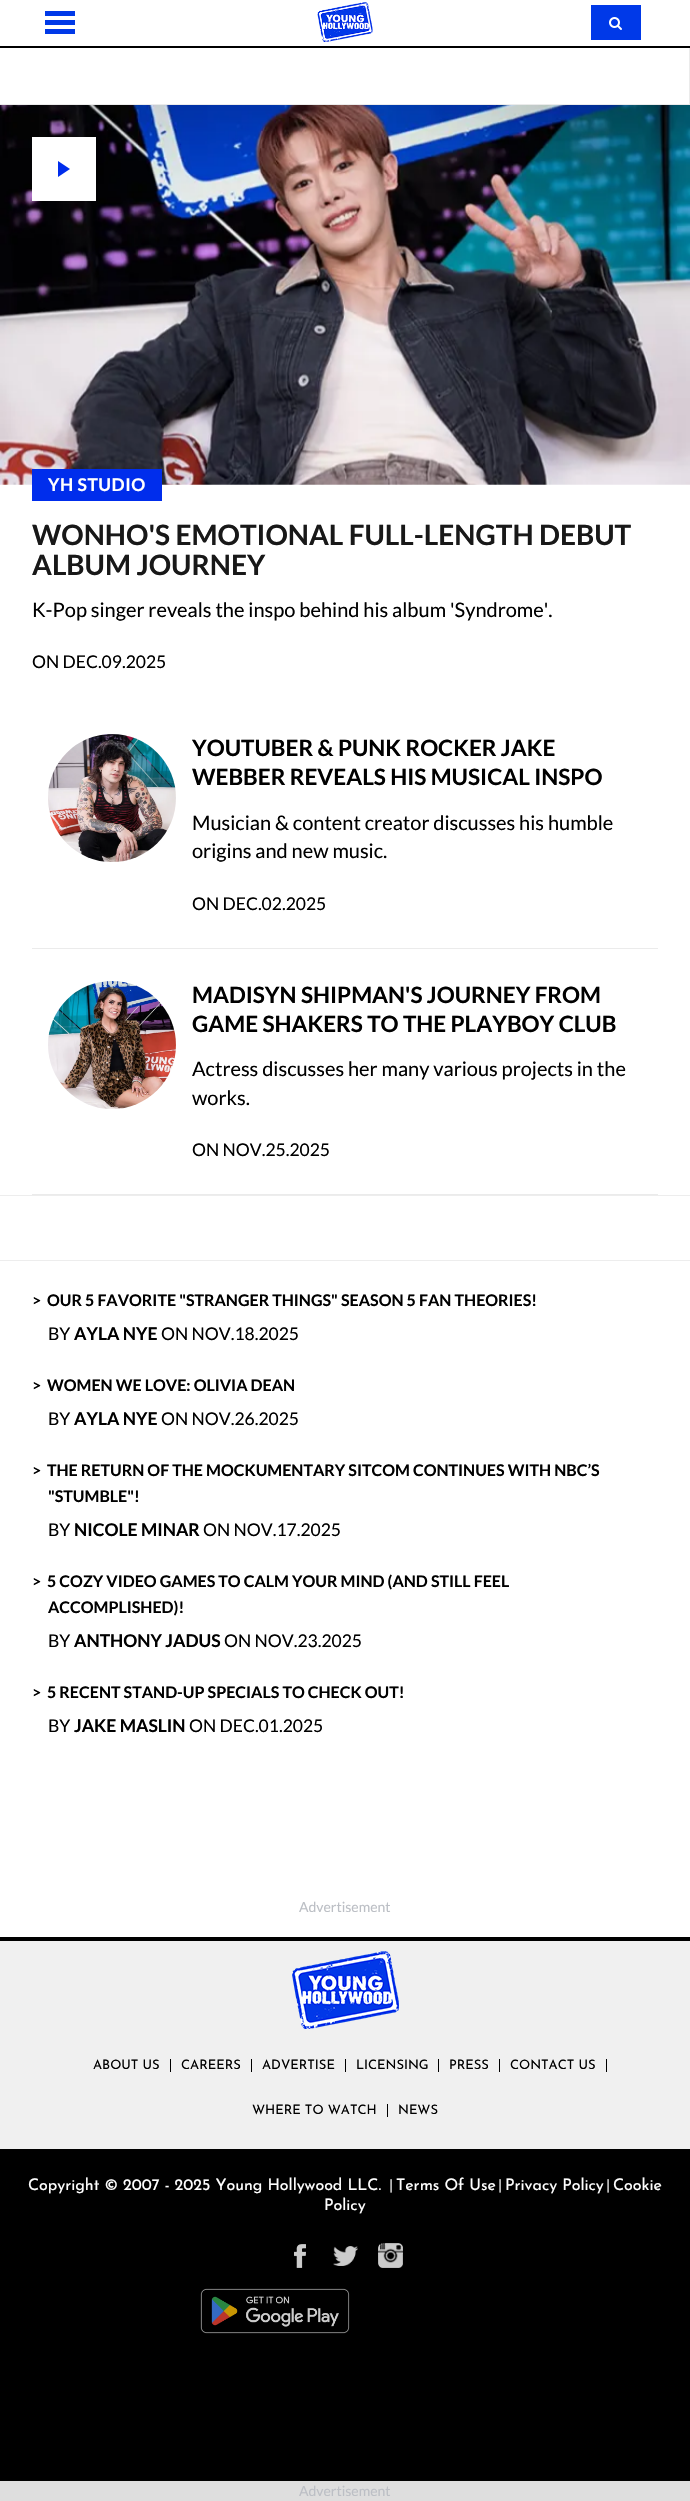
void draw(SkCanvas* canvas) {
    SkPaint paint;
    paint.setAntiAlias(true);
    auto spacedText = [&](const char* s, float x, float y, const SkFont& font, const SkPaint& ink, float letter, float word) {
        std::vector<SkGlyphID> glyphs(font.countText(s, strlen(s), SkTextEncoding::kUTF8));
        std::vector<float> xs(glyphs.size());
        font.textToGlyphs(s, strlen(s), SkTextEncoding::kUTF8, glyphs);
        font.getXPos(glyphs, xs, x);
        float extra = 0;
        for (size_t i = 0; i < glyphs.size(); i++) {
            xs[i] += extra;
            extra += letter + word * (glyphs[i] == font.unicharToGlyph(' '));
        }
        canvas->drawTextBlob(SkTextBlob::MakeFromPosHGlyphs(glyphs, xs, y, font), 0, 0, ink);
    };
    canvas->clear(0xFFFFFFFF);
    paint.setColor(0xFF000000);
    canvas->drawRect(SkRect::MakeXYWH(0, 46, 690, 2), paint);
    canvas->drawImageRect(SkImages::DeferredFromEncodedData(SkData::MakeFromFileName("img1.png")), SkRect::MakeXYWH(317, 2, 56, 40), SkSamplingOptions());
    paint.setColor(0xFF0039E8);
    canvas->drawRect(SkRect::MakeXYWH(45, 20, 30, 5), paint);
    canvas->drawRect(SkRect::MakeXYWH(45, 11, 30, 5), paint);
    canvas->drawRect(SkRect::MakeXYWH(45, 29, 30, 5), paint);
    canvas->drawRect(SkRect::MakeXYWH(591, 5, 50, 35), paint);
    canvas->drawImageRect(SkImages::DeferredFromEncodedData(SkData::MakeFromFileName("img2.png")), SkRect::MakeXYWH(609, 17, 13, 13), SkSamplingOptions());
    paint.setColor(0xFFEBEBEB);
    canvas->drawRect(SkRect::MakeXYWH(0, 104, 690, 1), paint);
    canvas->drawRect(SkRect::MakeXYWH(689, 48, 1, 56), paint);
    canvas->drawImageRect(SkImages::DeferredFromEncodedData(SkData::MakeFromFileName("img3.png")), SkRect::MakeXYWH(0, 105, 690, 380), SkSamplingOptions());
    paint.setColor(0xFFFFFFFF);
    canvas->drawRect(SkRect::MakeXYWH(32, 137, 64, 64), paint);
    paint.setColor(0xFF002DEC);
    canvas->drawPath(SkPathBuilder().moveTo(58, 177).lineTo(58, 161).lineTo(70, 169).close().detach(), paint);
    canvas->drawRect(SkRect::MakeXYWH(32, 469, 130, 32), paint);
    SkFont font1(fontMgr->matchFamilyStyle("Lato", SkFontStyle::Bold()), 17.5f);
    font1.setSubpixel(true);
    paint.setColor(0xFFFFFFFF);
    spacedText("YH STUDIO", 48, 491, font1, paint, 0.5f, 0);
    SkFont font2(fontMgr->matchFamilyStyle("Lato", SkFontStyle::Bold()), 28);
    font2.setSubpixel(true);
    paint.setColor(0xFF181818);
    canvas->drawString("WONHO'S EMOTIONAL FULL-LENGTH DEBUT", 32, 545, font2, paint);
    canvas->drawString("ALBUM JOURNEY", 32, 575, font2, paint);
    SkFont font3(fontMgr->matchFamilyStyle("Lato", SkFontStyle::Normal()), 20);
    font3.setSubpixel(true);
    paint.setColor(0xFF000000);
    canvas->drawString("K-Pop singer reveals the inspo behind his album 'Syndrome'.", 32, 617, font3, paint);
    SkFont font4(fontMgr->matchFamilyStyle("Lato", SkFontStyle::Normal()), 17.5f);
    font4.setSubpixel(true);
    canvas->drawString("ON DEC.09.2025", 32, 668, font4, paint);
    paint.setColor(0xFFEBEBEB);
    canvas->drawRect(SkRect::MakeXYWH(32, 948, 626, 1), paint);
    canvas->drawImageRect(SkImages::DeferredFromEncodedData(SkData::MakeFromFileName("img4.png")), SkRect::MakeXYWH(48, 734, 128, 128), SkSamplingOptions());
    SkFont font5(fontMgr->matchFamilyStyle("Lato", SkFontStyle::Bold()), 22.5f);
    font5.setSubpixel(true);
    paint.setColor(0xFF000000);
    canvas->drawString("YOUTUBER & PUNK ROCKER JAKE", 192, 756, font5, paint);
    canvas->drawString("WEBBER REVEALS HIS MUSICAL INSPO", 192, 785, font5, paint);
    canvas->drawString("Musician & content creator discusses his humble", 192, 830, font3, paint);
    canvas->drawString("origins and new music.", 192, 858, font3, paint);
    canvas->drawString("ON DEC.02.2025", 192, 910, font4, paint);
    paint.setColor(0xFFEBEBEB);
    canvas->drawRect(SkRect::MakeXYWH(32, 1194, 626, 1), paint);
    canvas->drawImageRect(SkImages::DeferredFromEncodedData(SkData::MakeFromFileName("img5.png")), SkRect::MakeXYWH(48, 981, 128, 128), SkSamplingOptions());
    paint.setColor(0xFF000000);
    canvas->drawString("MADISYN SHIPMAN'S JOURNEY FROM", 192, 1003, font5, paint);
    canvas->drawString("GAME SHAKERS TO THE PLAYBOY CLUB", 192, 1032, font5, paint);
    canvas->drawString("Actress discusses her many various projects in the", 192, 1076, font3, paint);
    canvas->drawString("works.", 192, 1105, font3, paint);
    canvas->drawString("ON NOV.25.2025", 192, 1156, font4, paint);
    paint.setColor(0xFFEDEDED);
    canvas->drawRect(SkRect::MakeXYWH(0, 1195, 690, 1), paint);
    canvas->drawRect(SkRect::MakeXYWH(0, 1260, 690, 1), paint);
    SkFont font6(fontMgr->matchFamilyStyle("Lato", SkFontStyle::Bold()), 16);
    font6.setSubpixel(true);
    paint.setColor(0xFF000000);
    canvas->drawString(">", 32, 1306, font6, paint);
    canvas->drawString("OUR 5 FAVORITE \"STRANGER THINGS\" SEASON 5 FAN THEORIES!", 47, 1306, font6, paint);
    canvas->drawString("BY", 48, 1340, font4, paint);
    canvas->drawString("AYLA NYE", 74, 1340, font1, paint);
    canvas->drawString("ON NOV.18.2025", 161, 1340, font4, paint);
    canvas->drawString(">", 32, 1391, font6, paint);
    canvas->drawString("WOMEN WE LOVE: OLIVIA DEAN", 47, 1391, font6, paint);
    canvas->drawString("BY", 48, 1425, font4, paint);
    canvas->drawString("AYLA NYE", 74, 1425, font1, paint);
    canvas->drawString("ON NOV.26.2025", 161, 1425, font4, paint);
    canvas->drawString(">", 32, 1476, font6, paint);
    canvas->drawString("THE RETURN OF THE MOCKUMENTARY SITCOM CONTINUES WITH NBC’S", 47, 1476, font6, paint);
    canvas->drawString("\"STUMBLE\"!", 48, 1502, font6, paint);
    canvas->drawString("BY", 48, 1536, font4, paint);
    canvas->drawString("NICOLE MINAR", 74, 1536, font1, paint);
    canvas->drawString("ON NOV.17.2025", 203, 1536, font4, paint);
    canvas->drawString(">", 32, 1587, font6, paint);
    canvas->drawString("5 COZY VIDEO GAMES TO CALM YOUR MIND (AND STILL FEEL", 47, 1587, font6, paint);
    canvas->drawString("ACCOMPLISHED)!", 48, 1613, font6, paint);
    canvas->drawString("BY", 48, 1647, font4, paint);
    canvas->drawString("ANTHONY JADUS", 74, 1647, font1, paint);
    canvas->drawString("ON NOV.23.2025", 224, 1647, font4, paint);
    canvas->drawString(">", 32, 1698, font6, paint);
    canvas->drawString("5 RECENT STAND-UP SPECIALS TO CHECK OUT!", 47, 1698, font6, paint);
    canvas->drawString("BY", 48, 1732, font4, paint);
    canvas->drawString("JAKE MASLIN", 74, 1732, font1, paint);
    canvas->drawString("ON DEC.01.2025", 189, 1732, font4, paint);
    SkFont font7(fontMgr->matchFamilyStyle("Lato", SkFontStyle::Normal()), 14);
    font7.setSubpixel(true);
    paint.setColor(0xFFBCBFC5);
    canvas->drawString("Advertisement", 299, 1912, font7, paint);
    paint.setColor(0xFF000000);
    canvas->drawRect(SkRect::MakeXYWH(0, 1937, 690, 544), paint);
    paint.setColor(0xFFF0F0F0);
    canvas->drawRect(SkRect::MakeXYWH(0, 1941, 690, 208), paint);
    canvas->drawImageRect(SkImages::DeferredFromEncodedData(SkData::MakeFromFileName("img6.png")), SkRect::MakeXYWH(292, 1951, 107, 78), SkSamplingOptions());
    paint.setColor(0xFF000000);
    canvas->drawRect(SkRect::MakeXYWH(170, 2059, 1, 13), paint);
    SkFont font8(fontMgr->matchFamilyStyle("Josefin Sans", SkFontStyle::Normal()), 13);
    font8.setSubpixel(true);
    canvas->drawString("ABOUT US", 93, 2069, font8, paint);
    canvas->drawRect(SkRect::MakeXYWH(251, 2059, 1, 13), paint);
    canvas->drawString("CAREERS", 181, 2069, font8, paint);
    canvas->drawRect(SkRect::MakeXYWH(345, 2059, 1, 13), paint);
    canvas->drawString("ADVERTISE", 262, 2069, font8, paint);
    canvas->drawRect(SkRect::MakeXYWH(438, 2059, 1, 13), paint);
    canvas->drawString("LICENSING", 356, 2069, font8, paint);
    canvas->drawRect(SkRect::MakeXYWH(499, 2059, 1, 13), paint);
    canvas->drawString("PRESS", 449, 2069, font8, paint);
    canvas->drawRect(SkRect::MakeXYWH(606, 2059, 1, 13), paint);
    canvas->drawString("CONTACT US", 510, 2069, font8, paint);
    canvas->drawRect(SkRect::MakeXYWH(387, 2104, 1, 13), paint);
    canvas->drawString("WHERE TO WATCH", 252, 2114, font8, paint);
    canvas->drawString("NEWS", 398, 2114, font8, paint);
    SkFont font9(fontMgr->matchFamilyStyle("Josefin Sans", SkFontStyle::Normal()), 16);
    font9.setSubpixel(true);
    paint.setColor(0xFFFFFFFF);
    canvas->drawString("Copyright © 2007 - 2025 Young Hollywood LLC.", 28, 2190, font9, paint);
    canvas->drawString("|", 389, 2190, font7, paint);
    canvas->drawString("Terms Of Use", 396, 2190, font9, paint);
    canvas->drawString("|", 498, 2190, font7, paint);
    canvas->drawString("Privacy Policy", 505, 2190, font9, paint);
    canvas->drawString("|", 606, 2190, font7, paint);
    canvas->drawString("Cookie", 613, 2190, font9, paint);
    canvas->drawString("Policy", 324, 2210, font9, paint);
    canvas->drawImageRect(SkImages::DeferredFromEncodedData(SkData::MakeFromFileName("img7.png")), SkRect::MakeXYWH(294, 2244, 12, 24), SkSamplingOptions());
    canvas->drawImageRect(SkImages::DeferredFromEncodedData(SkData::MakeFromFileName("img8.png")), SkRect::MakeXYWH(333, 2246, 25, 20), SkSamplingOptions());
    canvas->drawImageRect(SkImages::DeferredFromEncodedData(SkData::MakeFromFileName("img9.png")), SkRect::MakeXYWH(378, 2243, 25, 25), SkSamplingOptions());
    canvas->drawImageRect(SkImages::DeferredFromEncodedData(SkData::MakeFromFileName("img10.png")), SkRect::MakeXYWH(200, 2288, 150, 46), SkSamplingOptions());
    paint.setColor(0xFFDEDEDE);
    canvas->drawRect(SkRect::MakeXYWH(0, 2481, 690, 20), paint);
    paint.setColor(0xFFBCBFC5);
    canvas->drawString("Advertisement", 299, 2496, font7, paint);
}
